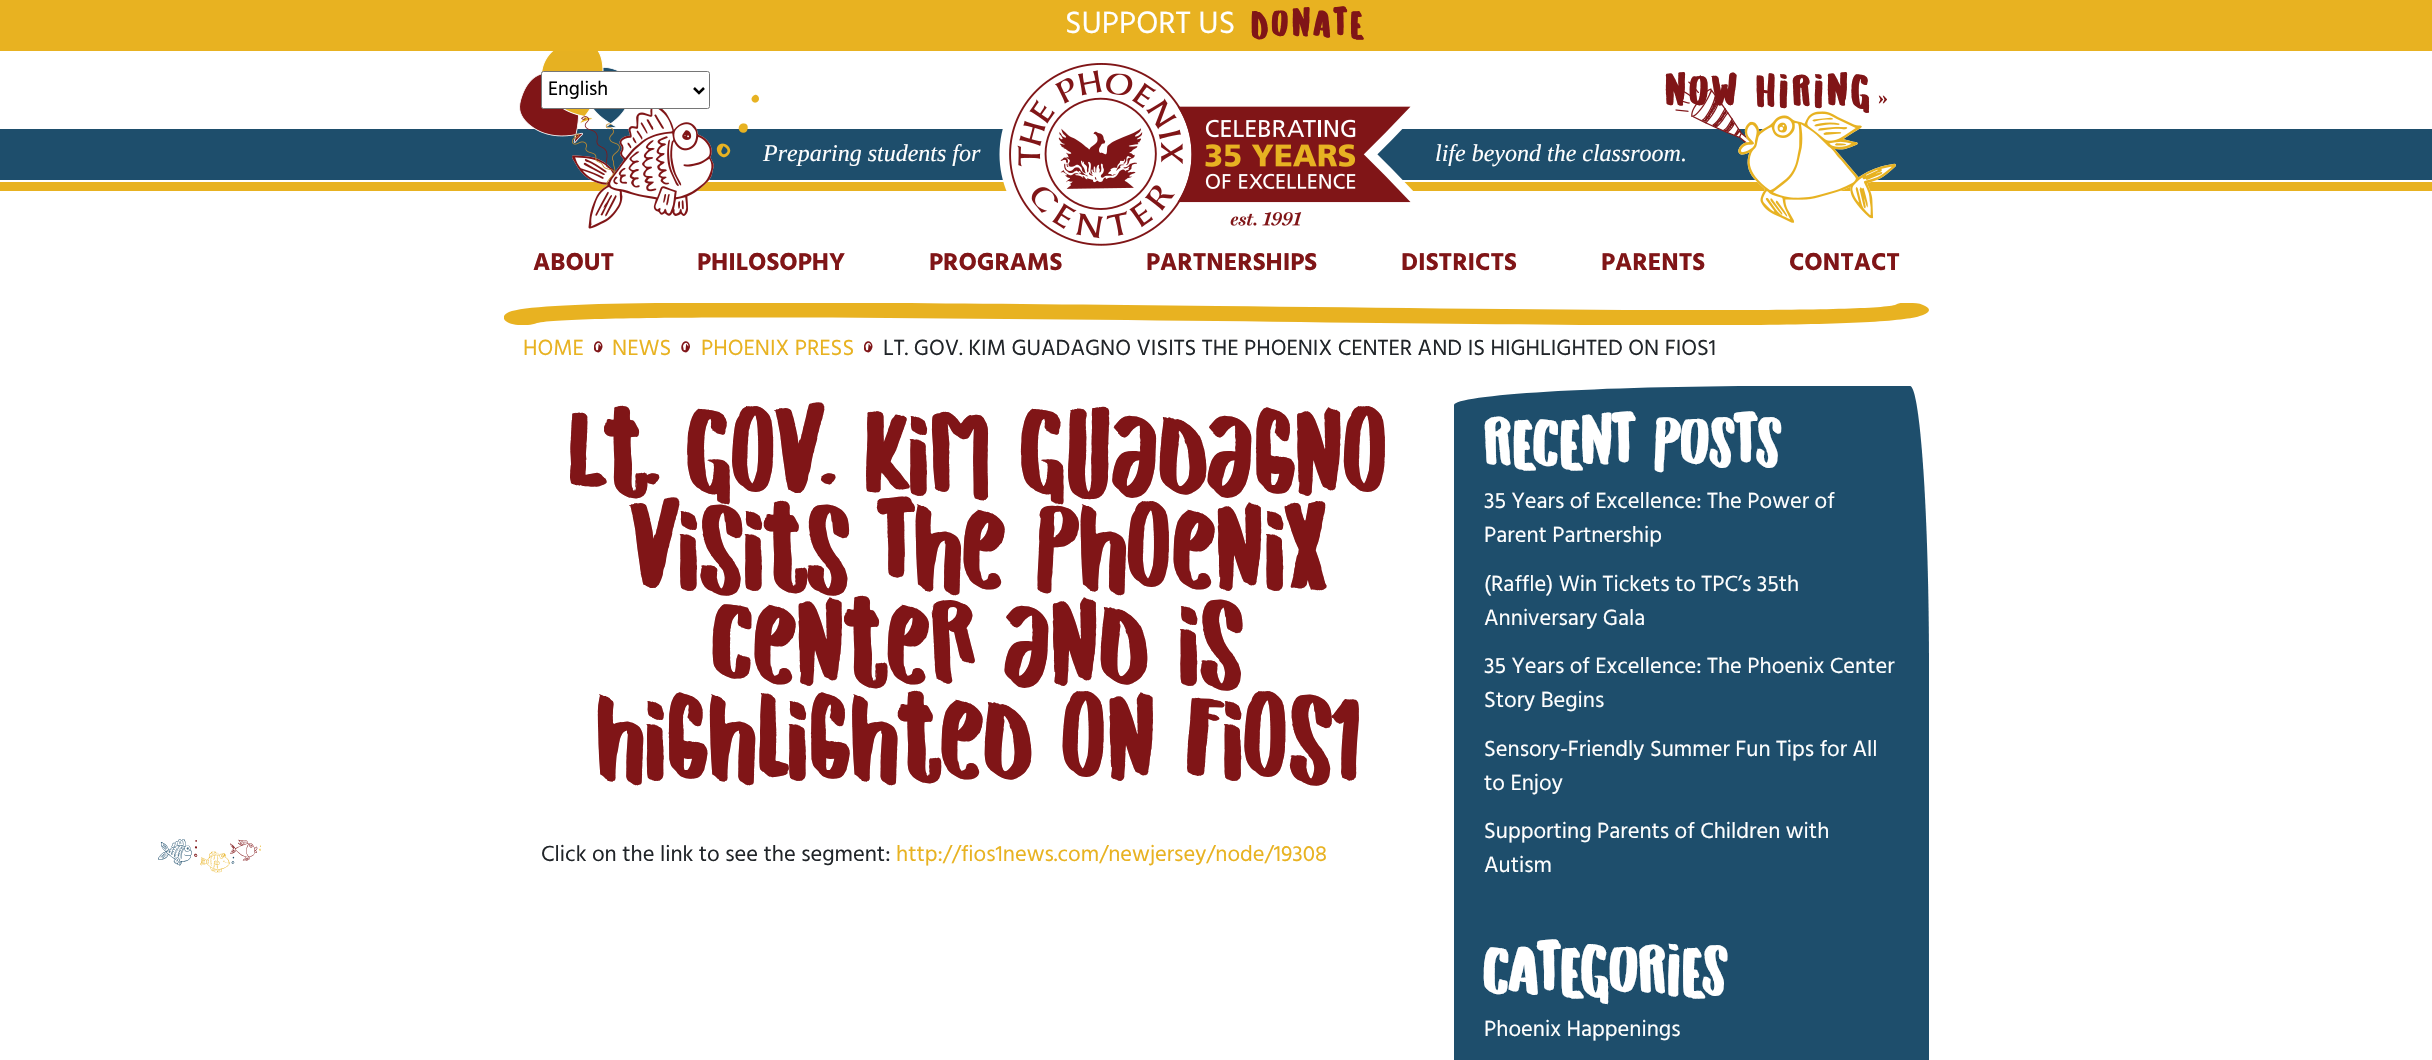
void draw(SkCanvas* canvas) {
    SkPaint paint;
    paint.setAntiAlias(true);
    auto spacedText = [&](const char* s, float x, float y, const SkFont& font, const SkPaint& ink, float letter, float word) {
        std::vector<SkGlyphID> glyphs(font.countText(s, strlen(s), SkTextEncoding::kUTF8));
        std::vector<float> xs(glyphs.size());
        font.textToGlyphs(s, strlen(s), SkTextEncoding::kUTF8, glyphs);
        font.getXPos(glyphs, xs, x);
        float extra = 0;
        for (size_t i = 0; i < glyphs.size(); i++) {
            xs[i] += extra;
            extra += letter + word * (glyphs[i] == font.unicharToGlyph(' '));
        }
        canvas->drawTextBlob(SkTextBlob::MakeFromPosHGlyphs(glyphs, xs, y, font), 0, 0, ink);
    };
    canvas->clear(0xFFFFFFFF);
    paint.setColor(0xFFE8B221);
    canvas->drawRect(SkRect::MakeXYWH(0, 0, 2432, 51), paint);
    SkFont font1(fontMgr->matchFamilyStyle("Hind", SkFontStyle::Normal()), 31.5f);
    font1.setSubpixel(true);
    paint.setColor(0xFFFFFFFF);
    canvas->drawString("SUPPORT US", 1065, 33, font1, paint);
    SkFont font2(fontMgr->matchFamilyStyle("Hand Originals", SkFontStyle::Bold()), 17.5f);
    font2.setSubpixel(true);
    paint.setColor(0xFF801517);
    spacedText("DONATE", 1251, 35, font2, paint, 4, 0);
    paint.setColor(0xFF1E4E6C);
    canvas->drawPath(SkPathBuilder().moveTo(-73, 129).lineTo(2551, 129).cubicTo(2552, 129, 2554, 148, 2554, 171).lineTo(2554, 177).cubicTo(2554, 179, 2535, 180, 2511, 180).lineTo(-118, 180).cubicTo(-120, 180, -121, 158, -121, 132).cubicTo(-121, 130, -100, 129, -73, 129).close().detach(), paint);
    paint.setColor(0xFFE8B221);
    canvas->drawPath(SkPathBuilder().moveTo(-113, 182).lineTo(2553, 182).lineTo(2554, 191).lineTo(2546, 191).lineTo(-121, 191).lineTo(-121, 183).close().detach(), paint);
    canvas->drawImageRect(SkImages::DeferredFromEncodedData(SkData::MakeFromFileName("img1.png")), SkRect::MakeXYWH(519, 51, 240, 178), SkSamplingOptions());
    paint.setColor(0xFFFFFFFF);
    canvas->drawRoundRect(SkRect::MakeXYWH(541.5f, 71.5f, 168, 37), 2, 2, paint);
    paint.setStyle(SkPaint::kStroke_Style);
    paint.setStrokeWidth(1);
    paint.setColor(0xFF767676);
    canvas->drawRoundRect(SkRect::MakeXYWH(541.5f, 71.5f, 168, 37), 2, 2, paint);
    paint.setStrokeWidth(2.5f);
    paint.setColor(0xFF000000);
    canvas->drawPath(SkPathBuilder().moveTo(694, 88).lineTo(699, 93).lineTo(704, 88).detach(), paint);
    SkFont font3(fontMgr->matchFamilyStyle("Hind", SkFontStyle::Normal()), 20);
    font3.setSubpixel(true);
    paint.setStyle(SkPaint::kFill_Style);
    canvas->drawString("English", 548, 95, font3, paint);
    SkFont font4(fontMgr->matchFamilyStyle("Liberation Serif", SkFontStyle::Italic()), 24);
    font4.setSubpixel(true);
    paint.setColor(0xFFFFFFFF);
    canvas->drawString("life beyond the classroom.", 1435, 161, font4, paint);
    canvas->drawImageRect(SkImages::DeferredFromEncodedData(SkData::MakeFromFileName("img3.png")), SkRect::MakeXYWH(1675, 75, 221, 148), SkSamplingOptions());
    SkFont font5(fontMgr->matchFamilyStyle("Hand Originals", SkFontStyle::Bold()), 20);
    font5.setSubpixel(true);
    paint.setColor(0xFF801517);
    spacedText("NOW HIRING", 1665, 104, font5, paint, 3.75f, 0);
    SkFont font6(fontMgr->matchFamilyStyle("Liberation Serif", SkFontStyle::Bold()), 20);
    font6.setSubpixel(true);
    spacedText("»", 1878, 104, font6, paint, 3.75f, 0);
    paint.setColor(0xFFFFFFFF);
    canvas->drawString("Preparing students for", 763, 161, font4, paint);
    canvas->drawImageRect(SkImages::DeferredFromEncodedData(SkData::MakeFromFileName("img2.png")), SkRect::MakeXYWH(999, 63, 414, 183), SkSamplingOptions());
    SkFont font7(fontMgr->matchFamilyStyle("Hind", SkFontStyle::Bold()), 25);
    font7.setSubpixel(true);
    paint.setColor(0xFF801517);
    canvas->drawString("ABOUT", 533, 270, font7, paint);
    canvas->drawString("PHILOSOPHY", 697, 270, font7, paint);
    canvas->drawString("PROGRAMS", 929, 270, font7, paint);
    canvas->drawString("PARTNERSHIPS", 1146, 270, font7, paint);
    canvas->drawString("DISTRICTS", 1401, 270, font7, paint);
    canvas->drawString("PARENTS", 1601, 270, font7, paint);
    canvas->drawString("CONTACT", 1789, 270, font7, paint);
    canvas->save();
    canvas->clipRect(SkRect::MakeXYWH(504, 303, 1425, 22));
    paint.setColor(0xFFE8B221);
    canvas->drawPath(SkPathBuilder().moveTo(1909, 302).cubicTo(1904, 302, 1899, 303, 1895, 305).cubicTo(1860, 314, 1503, 309, 1217, 306).cubicTo(750, 301, 541, 300, 509, 312).cubicTo(502, 315, 502, 320, 509, 323).cubicTo(517, 326, 529, 326, 537, 323).cubicTo(574, 314, 930, 318, 1216, 321).cubicTo(1683, 327, 1891, 328, 1923, 315).cubicTo(1931, 312, 1931, 308, 1923, 305).cubicTo(1919, 303, 1914, 303, 1909, 303).detach(), paint);
    canvas->restore();
    SkFont font8(fontMgr->matchFamilyStyle("Hind", SkFontStyle::Normal()), 22.5f);
    font8.setSubpixel(true);
    canvas->drawString("HOME", 523, 355, font8, paint);
    canvas->drawImageRect(SkImages::DeferredFromEncodedData(SkData::MakeFromFileName("img4.png")), SkRect::MakeXYWH(594, 341, 9, 12), SkSamplingOptions());
    canvas->drawString("NEWS", 612, 355, font8, paint);
    canvas->drawImageRect(SkImages::DeferredFromEncodedData(SkData::MakeFromFileName("img5.png")), SkRect::MakeXYWH(681, 341, 9, 12), SkSamplingOptions());
    canvas->drawString("PHOENIX PRESS", 701, 355, font8, paint);
    canvas->drawImageRect(SkImages::DeferredFromEncodedData(SkData::MakeFromFileName("img4.png")), SkRect::MakeXYWH(864, 341, 9, 12), SkSamplingOptions());
    paint.setColor(0xFF212529);
    canvas->drawString("LT. GOV. KIM GUADAGNO VISITS THE PHOENIX CENTER AND IS HIGHLIGHTED ON FIOS1", 883, 355, font8, paint);
    SkFont font9(fontMgr->matchFamilyStyle("Hand Originals", SkFontStyle::Normal()), 50);
    font9.setSubpixel(true);
    paint.setColor(0xFF801517);
    canvas->drawString("Lt. Gov. Kim Guadagno", 568, 482, font9, paint);
    canvas->drawString("visits The Phoenix", 632, 577, font9, paint);
    canvas->drawString("Center and is", 713, 672, font9, paint);
    canvas->drawString("highlighted on Fios1", 596, 767, font9, paint);
    canvas->drawImageRect(SkImages::DeferredFromEncodedData(SkData::MakeFromFileName("img6.png")), SkRect::MakeXYWH(158, 839, 103, 34), SkSamplingOptions());
    paint.setColor(0xFF212529);
    canvas->drawString("Click on the link to see the segment:", 541, 861, font8, paint);
    paint.setColor(0xFFE8B221);
    canvas->drawString("http://fios1news.com/newjersey/node/19308", 896, 861, font8, paint);
    paint.setColor(0xFF1E4E6C);
    canvas->drawPath(SkPathBuilder().moveTo(1772, 386).lineTo(1910, 386).cubicTo(1920, 386, 1929, 512, 1929, 668).lineTo(1929, 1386).cubicTo(1929, 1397, 1803, 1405, 1648, 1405).lineTo(1472, 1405).cubicTo(1462, 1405, 1454, 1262, 1454, 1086).lineTo(1454, 405).cubicTo(1454, 395, 1596, 386, 1772, 386).close().detach(), paint);
    SkFont font10(fontMgr->matchFamilyStyle("Hand Originals", SkFontStyle::Normal()), 31.5f);
    font10.setSubpixel(true);
    paint.setColor(0xFFFFFFFF);
    canvas->drawString("RECENT POSTS", 1484, 462, font10, paint);
    canvas->drawString("35 Years of Excellence: The Power of", 1484, 508, font8, paint);
    canvas->drawString("Parent Partnership", 1484, 542, font8, paint);
    canvas->drawString("(Raffle) Win Tickets to TPC’s 35th", 1484, 591, font8, paint);
    canvas->drawString("Anniversary Gala", 1484, 625, font8, paint);
    canvas->drawString("35 Years of Excellence: The Phoenix Center", 1484, 673, font8, paint);
    canvas->drawString("Story Begins", 1484, 707, font8, paint);
    canvas->drawString("Sensory-Friendly Summer Fun Tips for All", 1484, 756, font8, paint);
    canvas->drawString("to Enjoy", 1484, 790, font8, paint);
    canvas->drawString("Supporting Parents of Children with", 1484, 838, font8, paint);
    canvas->drawString("Autism", 1484, 872, font8, paint);
    canvas->drawString("CATEGORIES", 1484, 990, font10, paint);
    canvas->drawString("Phoenix Happenings", 1484, 1036, font8, paint);
}
